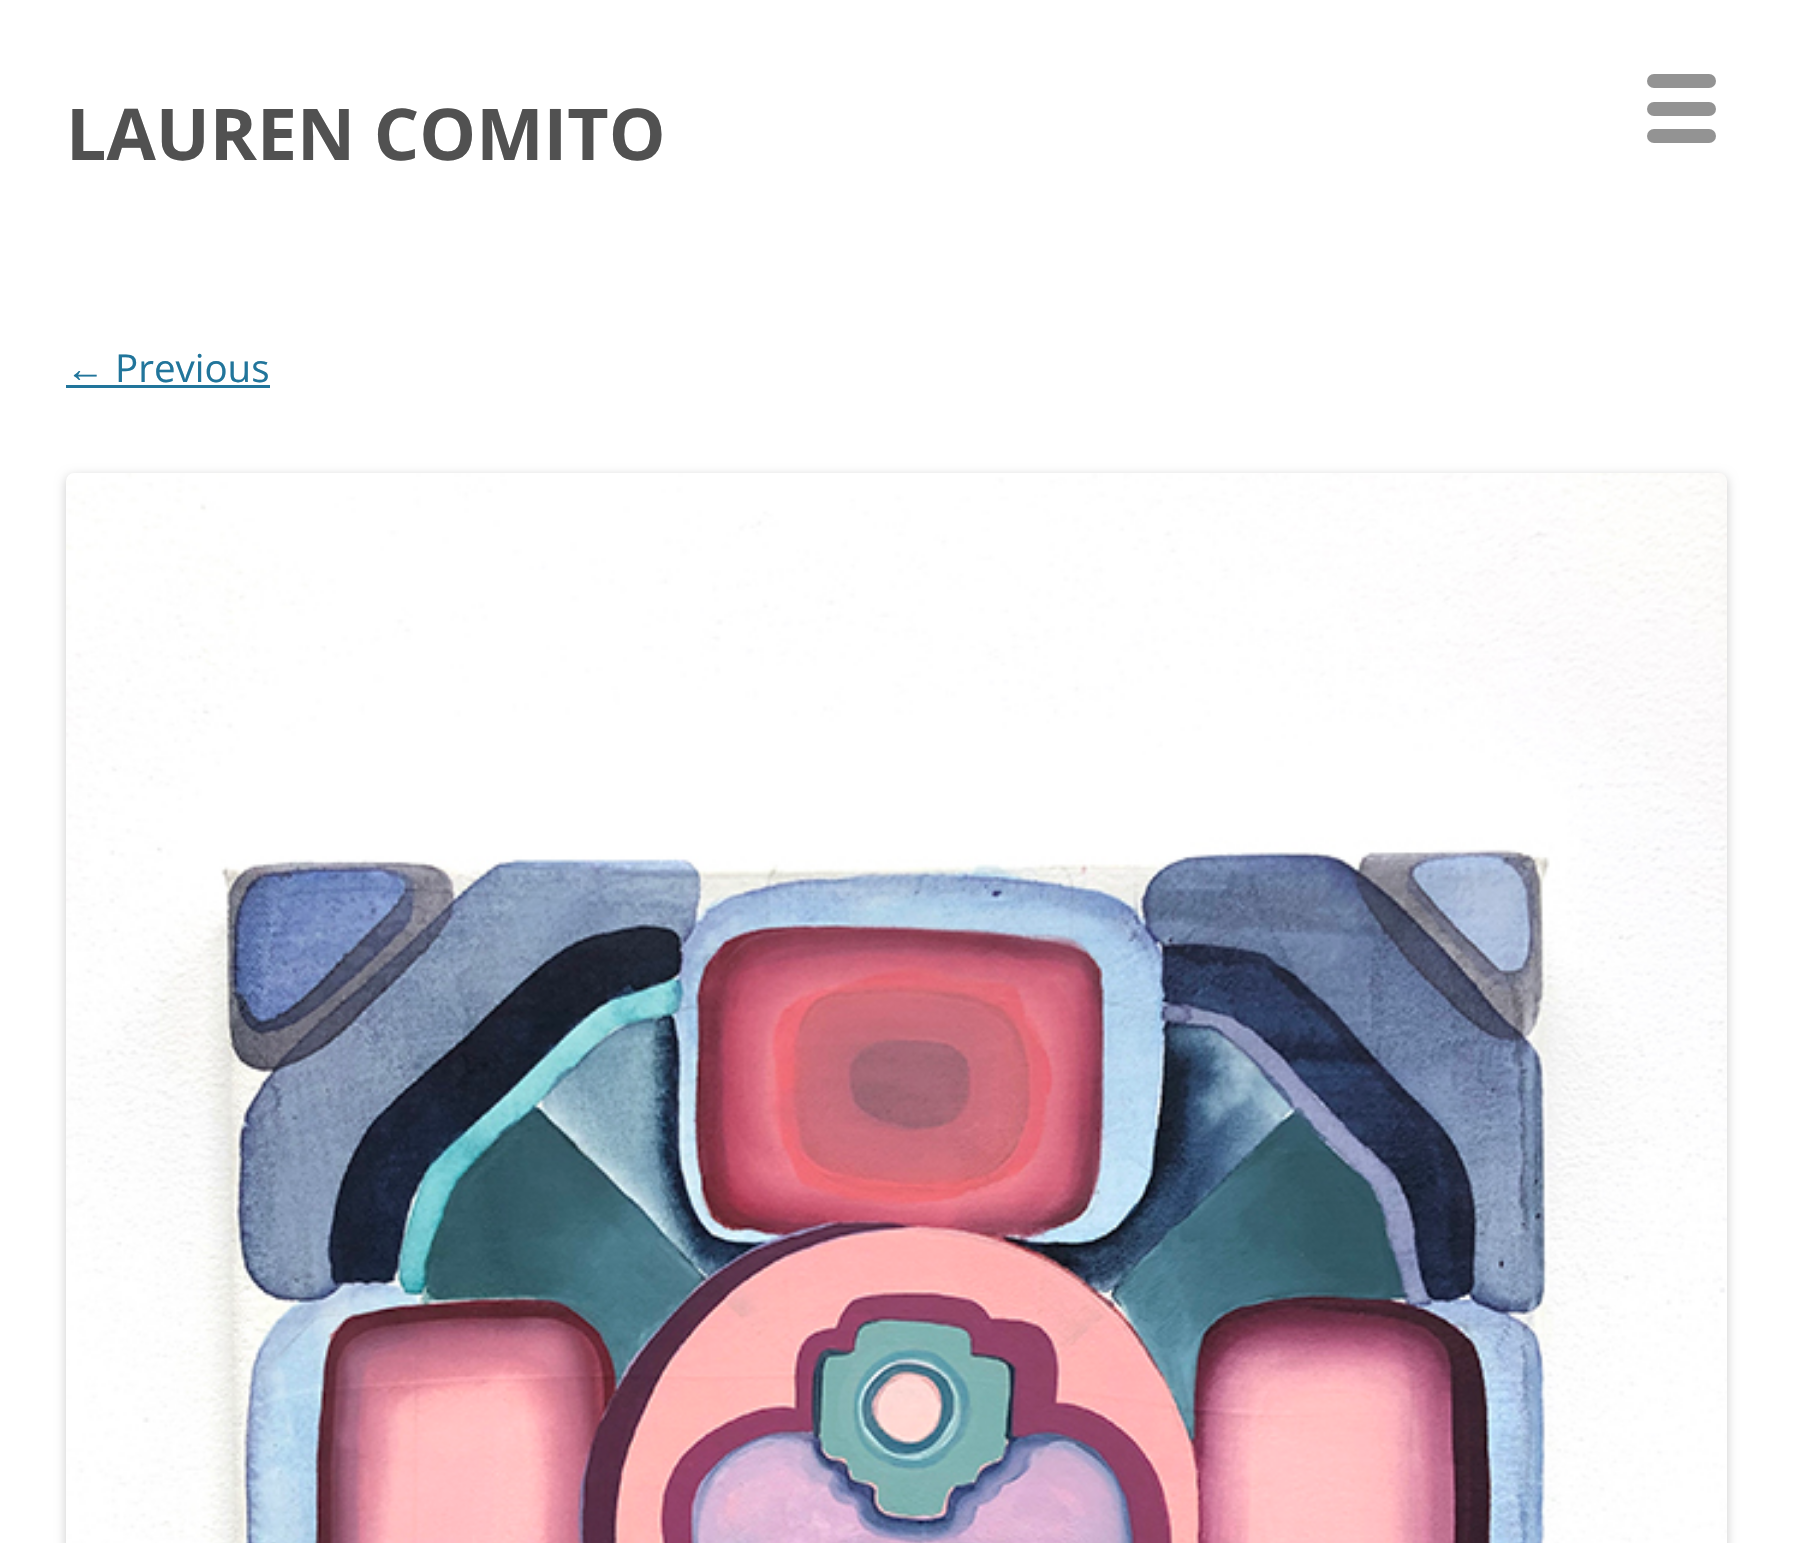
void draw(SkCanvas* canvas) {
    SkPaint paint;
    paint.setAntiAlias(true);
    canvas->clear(0xFFFFFFFF);
    SkFont font1(fontMgr->matchFamilyStyle("Open Sans", SkFontStyle::Bold()), 71.5f);
    font1.setSubpixel(true);
    paint.setColor(0xFF515151);
    canvas->drawString("LAUREN COMITO", 66, 160, font1, paint);
    SkFont font2(fontMgr->matchFamilyStyle("Liberation Sans", SkFontStyle::Normal()), 38.5f);
    font2.setSubpixel(true);
    paint.setColor(0xFF21759B);
    canvas->drawString("←", 66, 382, font2, paint);
    canvas->drawRect(SkRect::MakeXYWH(66, 385, 204, 3), paint);
    SkFont font3(fontMgr->matchFamilyStyle("Open Sans", SkFontStyle::Normal()), 38.5f);
    font3.setSubpixel(true);
    canvas->drawString("Previous", 115, 382, font3, paint);
    paint.setColor(0x33000000);
    paint.setMaskFilter(SkMaskFilter::MakeBlur(kNormal_SkBlurStyle, 5.5f));
    canvas->drawRoundRect(SkRect::MakeXYWH(66, 476, 1661, 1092), 8, 8, paint);
    paint.setMaskFilter(nullptr);
    canvas->drawImageRect(SkImages::DeferredFromEncodedData(SkData::MakeFromFileName("img1.png")), SkRect::MakeXYWH(66, 473, 1661, 1070), SkSamplingOptions());
    paint.setColor(0xFF939393);
    canvas->drawRoundRect(SkRect::MakeXYWH(1647, 102, 69, 14), 7, 7, paint);
    canvas->drawRoundRect(SkRect::MakeXYWH(1647, 74, 69, 14), 7, 7, paint);
    canvas->drawRoundRect(SkRect::MakeXYWH(1647, 129, 69, 14), 7, 7, paint);
}
